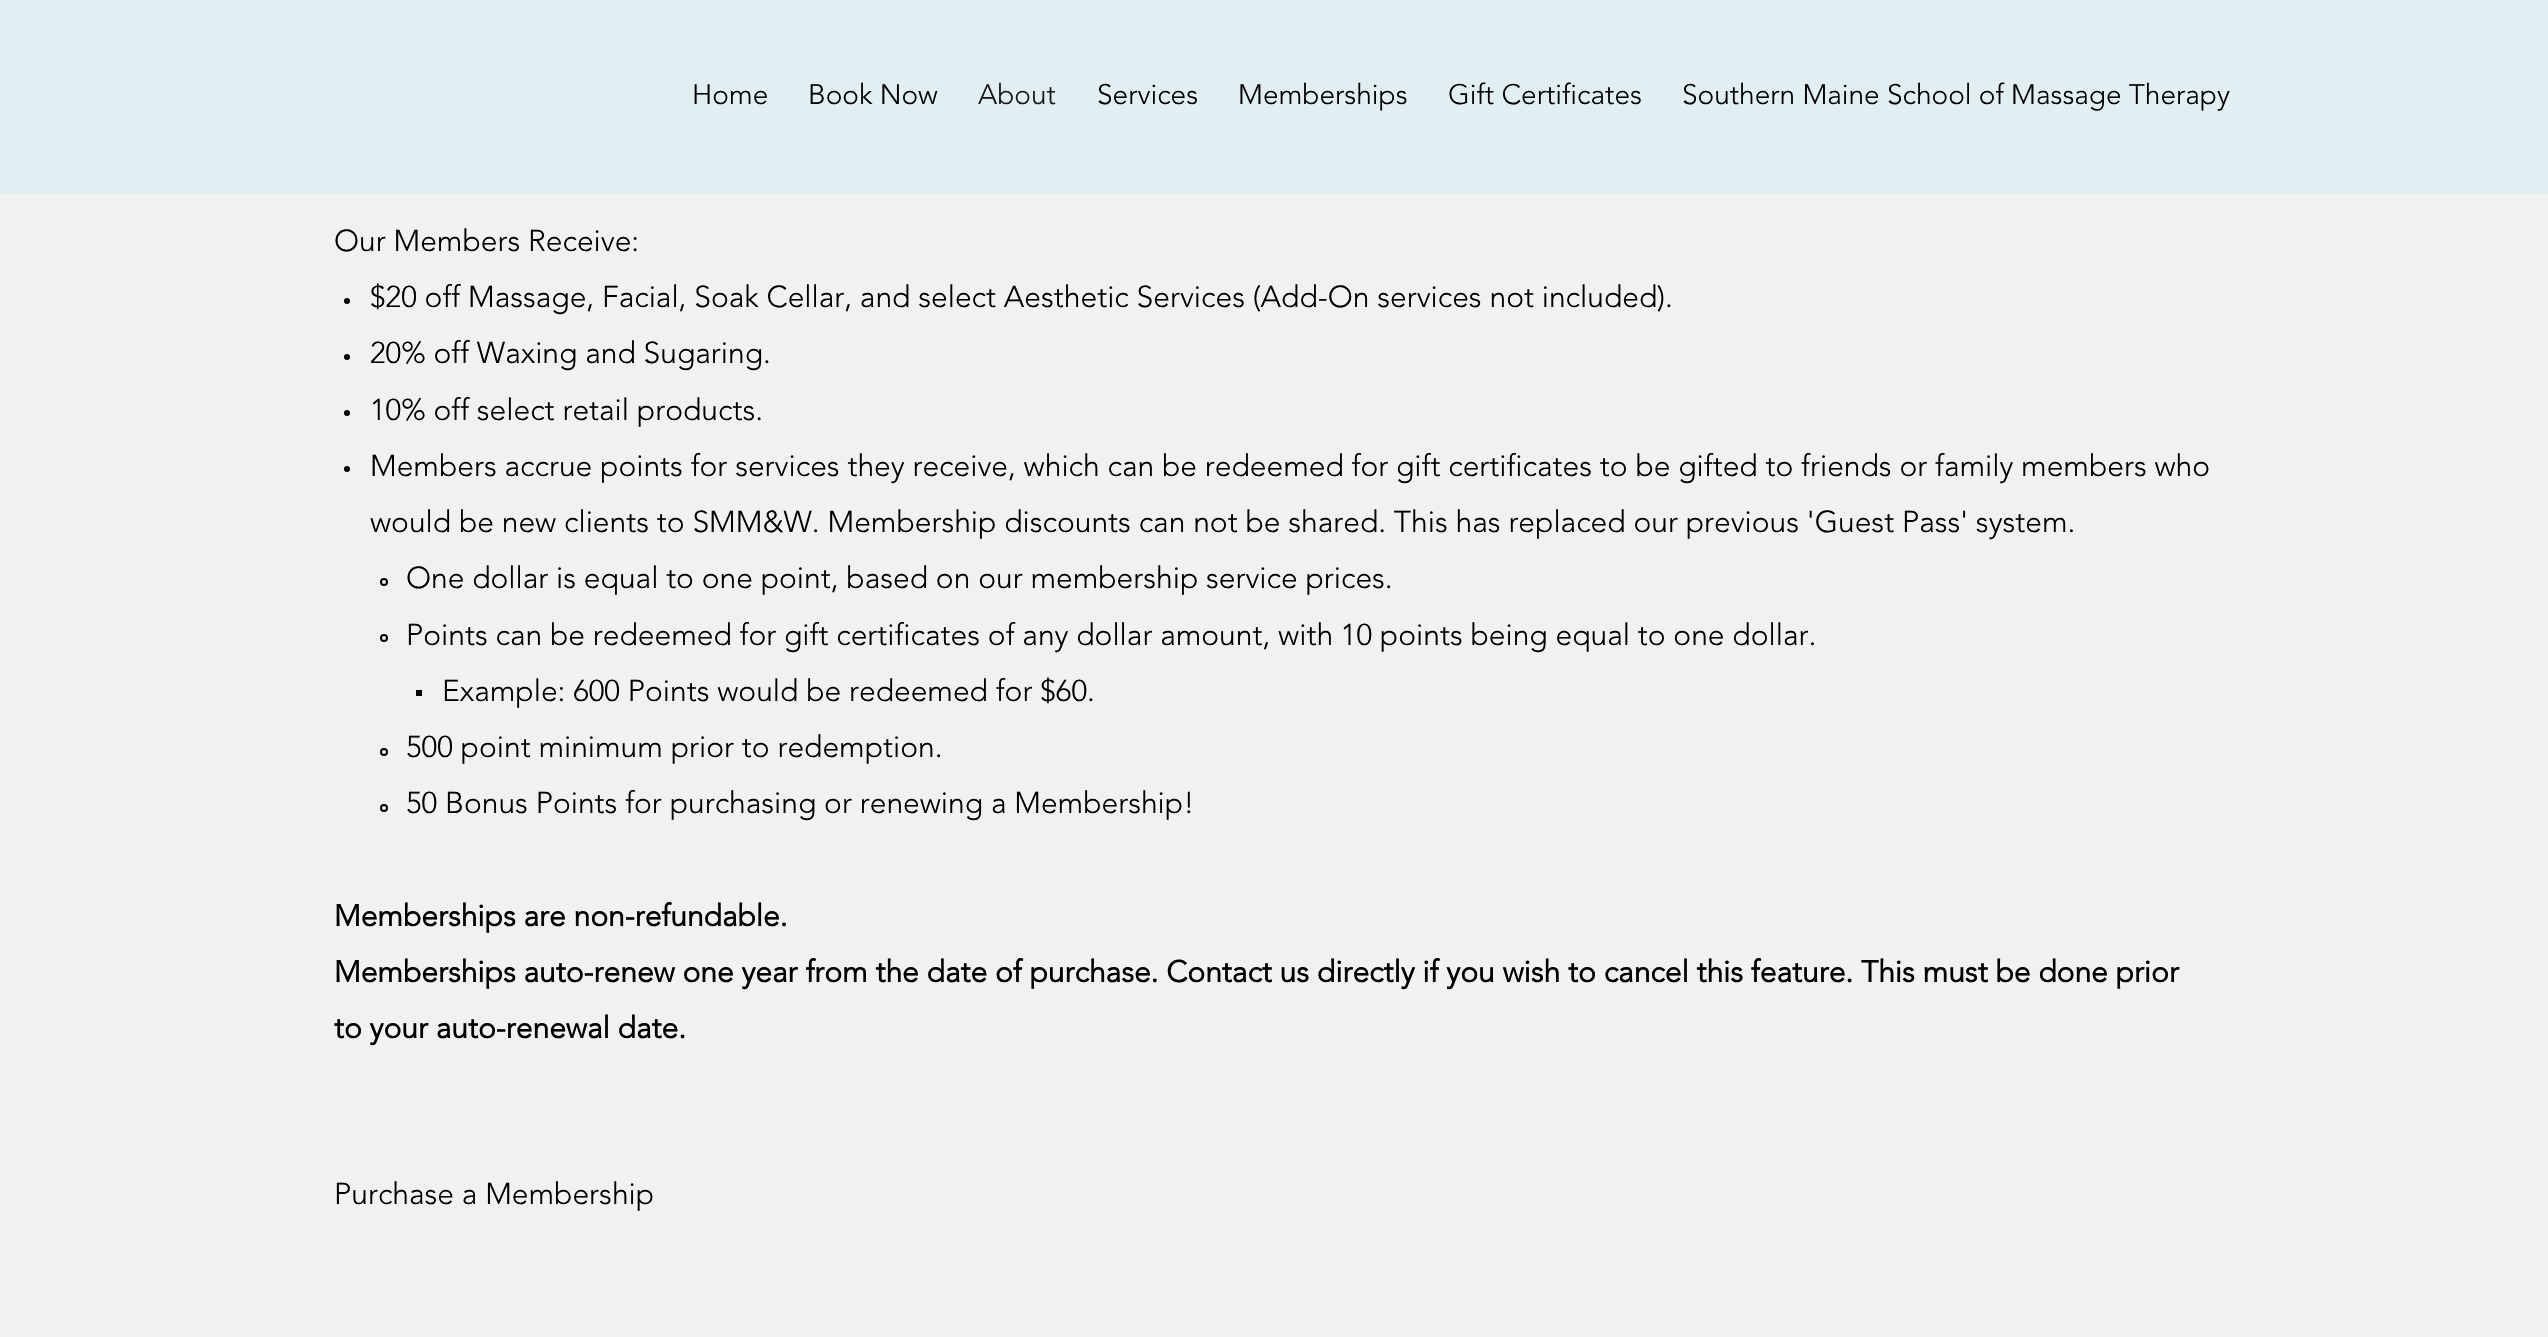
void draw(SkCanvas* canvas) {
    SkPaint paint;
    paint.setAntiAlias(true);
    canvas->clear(0xFFF1F1F1);
    paint.setColor(0xFFE1EFF2);
    canvas->drawRect(SkRect::MakeXYWH(0, 0, 2548, 194), paint);
    SkFont font1(fontMgr->matchFamilyStyle("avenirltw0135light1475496", SkFontStyle(300, SkFontStyle::kNormal_Width, SkFontStyle::kUpright_Slant)), 28);
    font1.setSubpixel(true);
    paint.setColor(0xFF000000);
    canvas->drawString("Home", 692, 104, font1, paint);
    canvas->drawString("Book Now", 808, 104, font1, paint);
    paint.setColor(0xFF191919);
    canvas->drawString("About", 978, 104, font1, paint);
    paint.setColor(0xFF000000);
    canvas->drawString("Services", 1097, 104, font1, paint);
    canvas->drawString("Memberships", 1238, 104, font1, paint);
    canvas->drawString("Gift Certificates", 1448, 104, font1, paint);
    canvas->drawString("Southern Maine School of Massage Therapy", 1682, 104, font1, paint);
    SkFont font2(fontMgr->matchFamilyStyle("avenirltw0135light1475496", SkFontStyle(300, SkFontStyle::kNormal_Width, SkFontStyle::kUpright_Slant)), 30);
    font2.setSubpixel(true);
    canvas->drawString("Our Members Receive:", 334, 251, font2, paint);
    canvas->drawCircle(347, 301, 3, paint);
    canvas->drawString("$20 off Massage, Facial, Soak Cellar, and select Aesthetic Services (Add-On services not included).", 370, 307, font2, paint);
    canvas->drawCircle(347, 357, 3, paint);
    canvas->drawString("20% off Waxing and Sugaring.", 370, 363, font2, paint);
    canvas->drawCircle(347, 413, 3, paint);
    canvas->drawString("10% off select retail products.", 370, 420, font2, paint);
    canvas->drawCircle(347, 469, 3, paint);
    canvas->drawString("Members accrue points for services they receive, which can be redeemed for gift certificates to be gifted to friends or family members who", 370, 476, font2, paint);
    canvas->drawString("would be new clients to SMM&W. Membership discounts can not be shared. This has replaced our previous 'Guest Pass' system.", 370, 532, font2, paint);
    paint.setStyle(SkPaint::kStroke_Style);
    paint.setStrokeWidth(2);
    canvas->drawCircle(384, 582, 3, paint);
    paint.setStyle(SkPaint::kFill_Style);
    canvas->drawString("One dollar is equal to one point, based on our membership service prices.", 406, 588, font2, paint);
    paint.setStyle(SkPaint::kStroke_Style);
    canvas->drawCircle(384, 638, 3, paint);
    paint.setStyle(SkPaint::kFill_Style);
    canvas->drawString("Points can be redeemed for gift certificates of any dollar amount, with 10 points being equal to one dollar.", 406, 645, font2, paint);
    canvas->drawRect(SkRect::MakeXYWH(416, 690, 6, 6), paint);
    canvas->drawString("Example: 600 Points would be redeemed for $60.", 442, 701, font2, paint);
    paint.setStyle(SkPaint::kStroke_Style);
    canvas->drawCircle(384, 752, 3, paint);
    paint.setStyle(SkPaint::kFill_Style);
    canvas->drawString("500 point minimum prior to redemption.", 406, 757, font2, paint);
    paint.setStyle(SkPaint::kStroke_Style);
    canvas->drawCircle(384, 808, 3, paint);
    paint.setStyle(SkPaint::kFill_Style);
    canvas->drawString("50 Bonus Points for purchasing or renewing a Membership!", 406, 813, font2, paint);
    SkFont font3(fontMgr->matchFamilyStyle("avenirltw0135light1475496", SkFontStyle::Bold()), 30);
    font3.setSubpixel(true);
    canvas->drawString("Memberships are non-refundable.", 334, 926, font3, paint);
    canvas->drawString("Memberships auto-renew one year from the date of purchase. Contact us directly if you wish to cancel this feature. This must be done prior", 334, 982, font3, paint);
    canvas->drawString("to your auto-renewal date.", 334, 1038, font3, paint);
    canvas->drawString("Purchase a Membership", 334, 1204, font2, paint);
}
